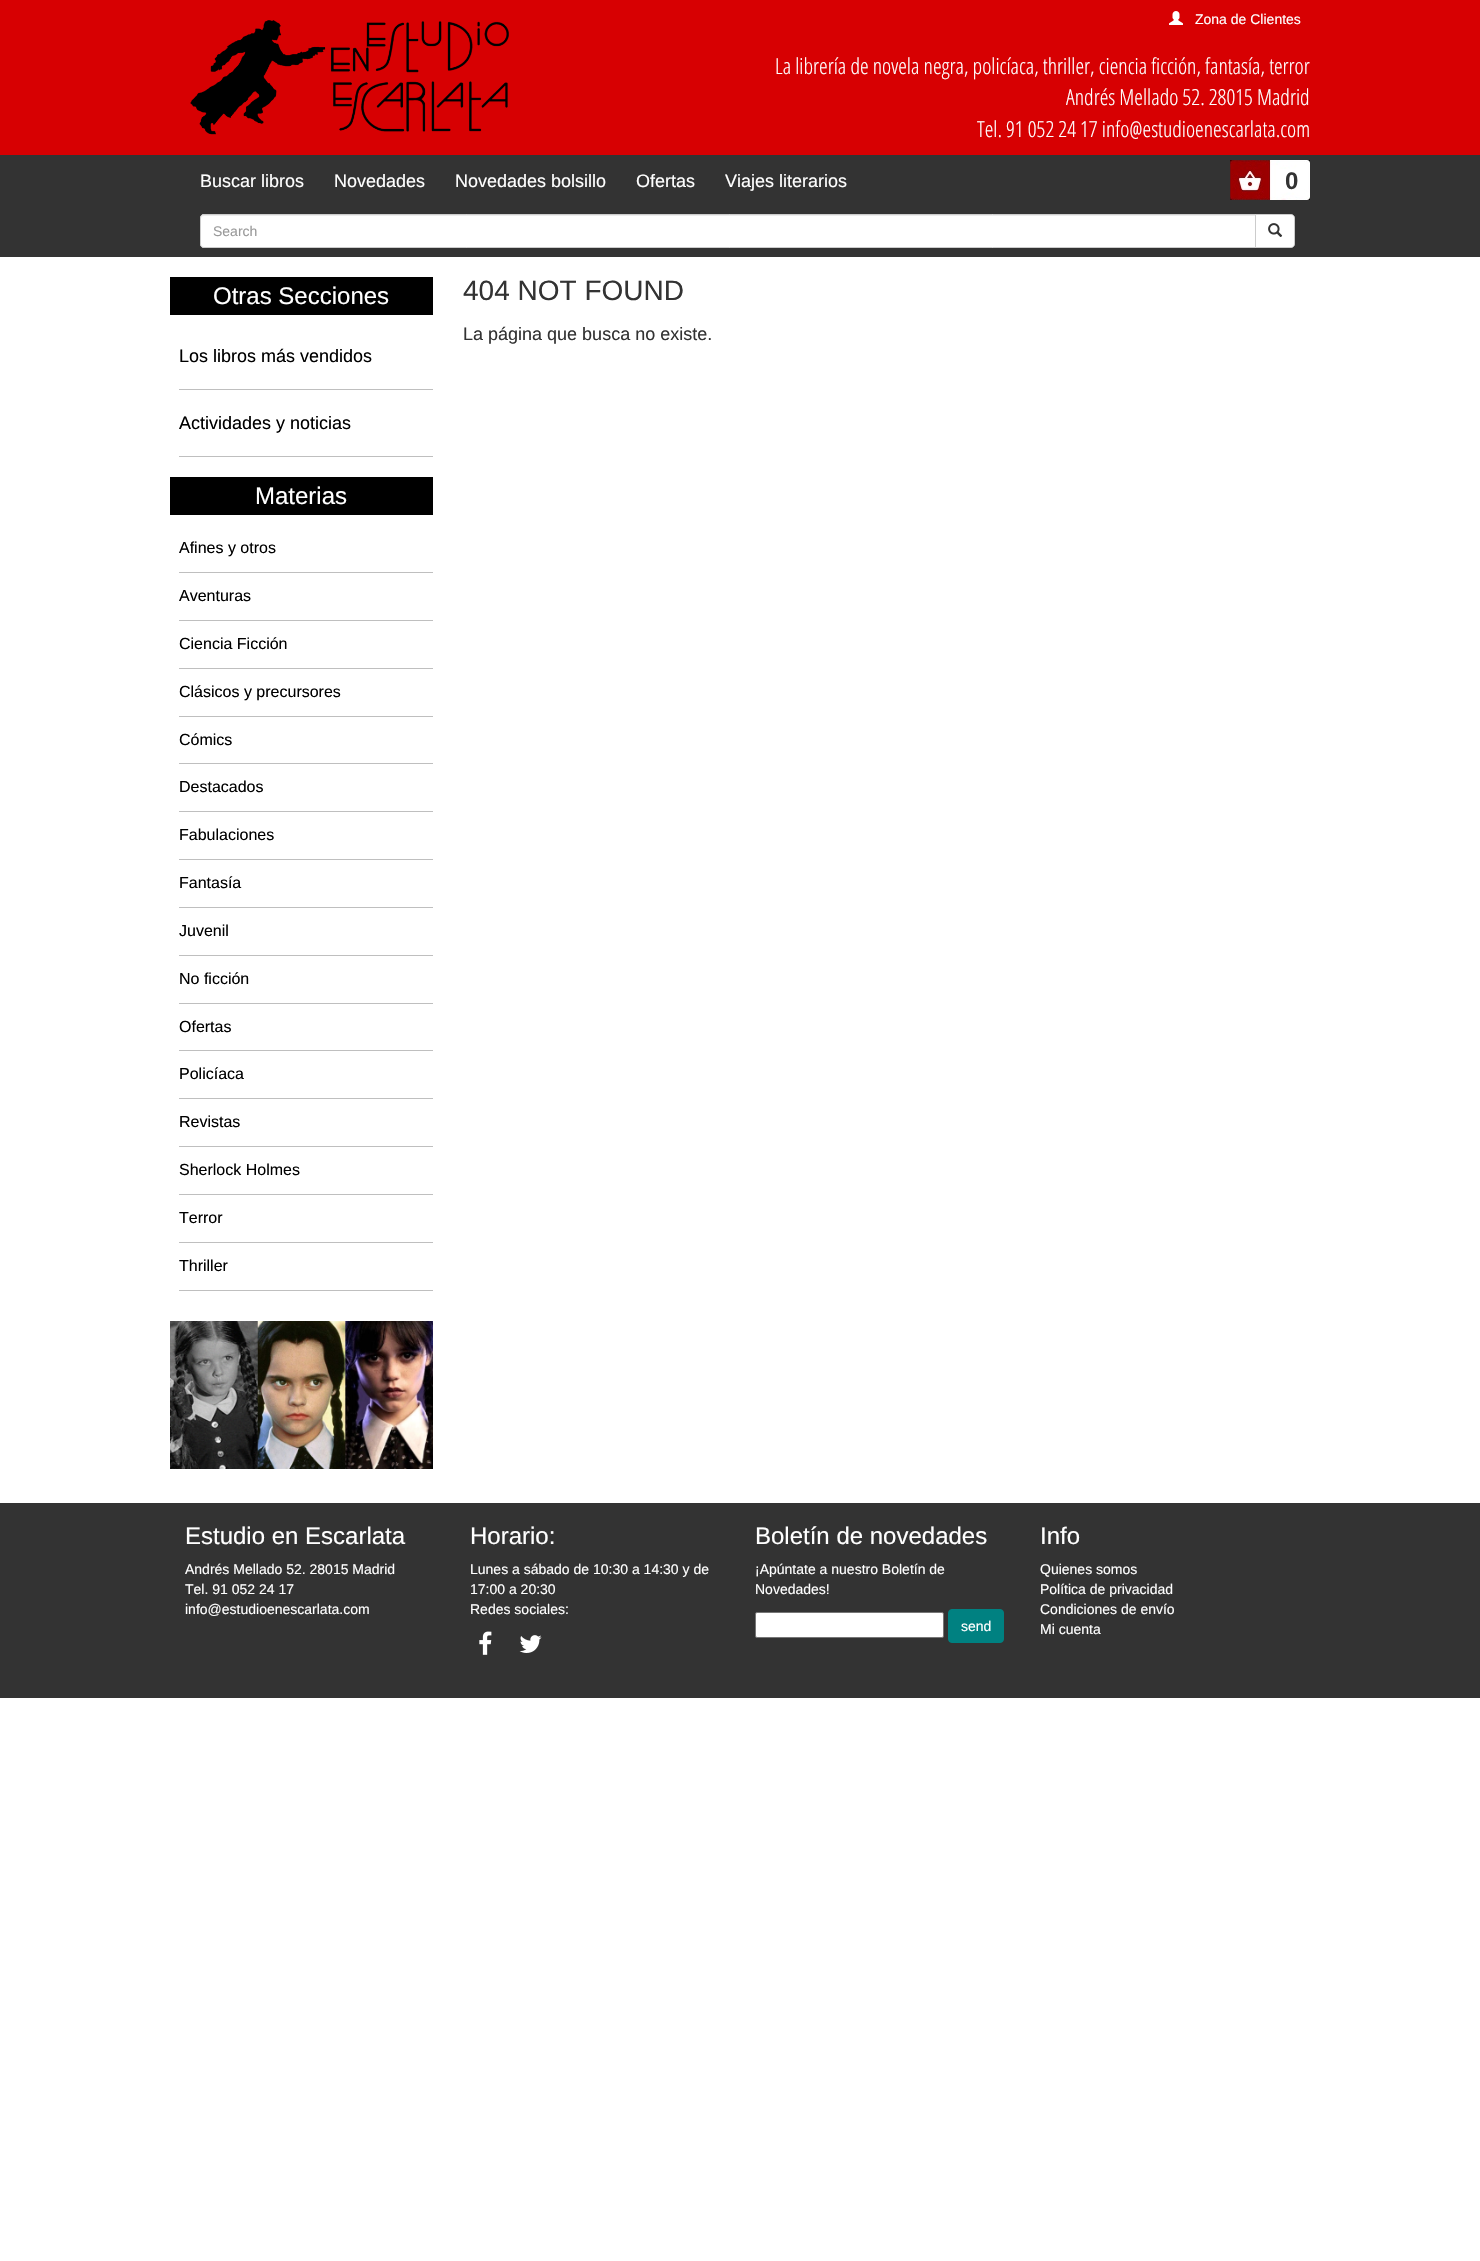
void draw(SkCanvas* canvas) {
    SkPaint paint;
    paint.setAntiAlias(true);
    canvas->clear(0xFFFFFFFF);
    paint.setColor(0xFFD70002);
    canvas->drawRect(SkRect::MakeXYWH(0, 0, 1480, 155), paint);
    canvas->drawImageRect(SkImages::DeferredFromEncodedData(SkData::MakeFromFileName("img1.png")), SkRect::MakeXYWH(190, 20, 319, 115), SkSamplingOptions());
    canvas->drawImageRect(SkImages::DeferredFromEncodedData(SkData::MakeFromFileName("img2.png")), SkRect::MakeXYWH(1169, 11, 14, 14), SkSamplingOptions());
    SkFont font1(fontMgr->matchFamilyStyle("Liberation Sans", SkFontStyle::Normal()), 14);
    font1.setSubpixel(true);
    paint.setColor(0xFFFFFFFF);
    canvas->drawString("Zona de Clientes", 1195, 24, font1, paint);
    SkFont font2(fontMgr->matchFamilyStyle("Open Sans Condensed", SkFontStyle(300, SkFontStyle::kNormal_Width, SkFontStyle::kUpright_Slant)), 22);
    font2.setSubpixel(true);
    canvas->drawString("La librería de novela negra, policíaca, thriller, ciencia ficción, fantasía, terror", 775, 74, font2, paint);
    canvas->drawString("Andrés Mellado 52. 28015 Madrid", 1066, 105, font2, paint);
    canvas->drawString("Tel. 91 052 24 17 info@estudioenescarlata.com", 977, 137, font2, paint);
    paint.setColor(0xFF333333);
    canvas->drawRect(SkRect::MakeXYWH(0, 155, 1480, 102), paint);
    SkFont font3(fontMgr->matchFamilyStyle("Liberation Sans", SkFontStyle::Normal()), 18);
    font3.setSubpixel(true);
    paint.setColor(0xFFFFFFFF);
    canvas->drawString("Buscar libros", 200, 187, font3, paint);
    canvas->drawString("Novedades", 334, 187, font3, paint);
    canvas->drawString("Novedades bolsillo", 455, 187, font3, paint);
    canvas->drawString("Ofertas", 636, 187, font3, paint);
    canvas->drawString("Viajes literarios", 725, 187, font3, paint);
    canvas->drawPath(SkPathBuilder().moveTo(204, 214).lineTo(1256, 214).lineTo(1256, 248).lineTo(204, 248).cubicTo(202, 248, 200, 246, 200, 244).lineTo(200, 218).cubicTo(200, 216, 202, 214, 204, 214).close().detach(), paint);
    paint.setColor(0xFFECECEC);
    canvas->drawPath(SkPathBuilder().moveTo(204, 216).lineTo(1255, 216).lineTo(1255, 215).lineTo(204, 215).cubicTo(202, 215, 201, 217, 201, 219).cubicTo(201, 217, 202, 216, 204, 216).close().detach(), paint);
    paint.setStyle(SkPaint::kStroke_Style);
    paint.setStrokeWidth(1);
    paint.setColor(0xFFCCCCCC);
    canvas->drawPath(SkPathBuilder().moveTo(204, 214.5f).lineTo(1255.5f, 214.5f).lineTo(1255.5f, 247.5f).lineTo(204, 247.5f).cubicTo(202, 247.5f, 200.5f, 246, 200.5f, 244).lineTo(200.5f, 218).cubicTo(200.5f, 216, 202, 214.5f, 204, 214.5f).close().detach(), paint);
    paint.setStyle(SkPaint::kFill_Style);
    paint.setColor(0xFF999999);
    canvas->drawString("Search", 213, 236, font1, paint);
    paint.setColor(0xFFFFFFFF);
    canvas->drawPath(SkPathBuilder().moveTo(1255.5f, 214.5f).lineTo(1291, 214.5f).cubicTo(1293, 214.5f, 1294.5f, 216, 1294.5f, 218).lineTo(1294.5f, 244).cubicTo(1294.5f, 246, 1293, 247.5f, 1291, 247.5f).lineTo(1255.5f, 247.5f).close().detach(), paint);
    paint.setStyle(SkPaint::kStroke_Style);
    paint.setColor(0xFFCCCCCC);
    canvas->drawPath(SkPathBuilder().moveTo(1255.5f, 214.5f).lineTo(1291, 214.5f).cubicTo(1293, 214.5f, 1294.5f, 216, 1294.5f, 218).lineTo(1294.5f, 244).cubicTo(1294.5f, 246, 1293, 247.5f, 1291, 247.5f).lineTo(1255.5f, 247.5f).close().detach(), paint);
    canvas->drawImageRect(SkImages::DeferredFromEncodedData(SkData::MakeFromFileName("img3.png")), SkRect::MakeXYWH(1268, 223, 15, 14), SkSamplingOptions());
    canvas->drawImageRect(SkImages::DeferredFromEncodedData(SkData::MakeFromFileName("img4.png")), SkRect::MakeXYWH(1230, 160, 80, 40), SkSamplingOptions());
    SkFont font4(fontMgr->matchFamilyStyle("Liberation Sans", SkFontStyle::Bold()), 24);
    font4.setSubpixel(true);
    paint.setStyle(SkPaint::kFill_Style);
    paint.setColor(0xFF333333);
    canvas->drawString("0", 1285, 189, font4, paint);
    paint.setColor(0xFF000000);
    canvas->drawRect(SkRect::MakeXYWH(170, 277, 263, 38), paint);
    SkFont font5(fontMgr->matchFamilyStyle("Liberation Sans", SkFontStyle::Normal()), 24);
    font5.setSubpixel(true);
    paint.setColor(0xFFFFFFFF);
    canvas->drawString("Otras Secciones", 213, 304, font5, paint);
    paint.setColor(0xFFBFBFBF);
    canvas->drawRect(SkRect::MakeXYWH(179, 389, 254, 1), paint);
    paint.setColor(0xFF000000);
    canvas->drawString("Los libros más vendidos", 179, 362, font3, paint);
    paint.setColor(0xFFBFBFBF);
    canvas->drawRect(SkRect::MakeXYWH(179, 456, 254, 1), paint);
    paint.setColor(0xFF000000);
    canvas->drawString("Actividades y noticias", 179, 429, font3, paint);
    canvas->drawRect(SkRect::MakeXYWH(170, 477, 263, 38), paint);
    paint.setColor(0xFFFFFFFF);
    canvas->drawString("Materias", 255, 504, font5, paint);
    paint.setColor(0xFFBFBFBF);
    canvas->drawRect(SkRect::MakeXYWH(179, 572, 254, 1), paint);
    SkFont font6(fontMgr->matchFamilyStyle("Liberation Sans", SkFontStyle::Normal()), 16);
    font6.setSubpixel(true);
    paint.setColor(0xFF000000);
    canvas->drawString("Afines y otros", 179, 553, font6, paint);
    paint.setColor(0xFFBFBFBF);
    canvas->drawRect(SkRect::MakeXYWH(179, 620, 254, 1), paint);
    paint.setColor(0xFF000000);
    canvas->drawString("Aventuras", 179, 601, font6, paint);
    paint.setColor(0xFFBFBFBF);
    canvas->drawRect(SkRect::MakeXYWH(179, 668, 254, 1), paint);
    paint.setColor(0xFF000000);
    canvas->drawString("Ciencia Ficción", 179, 649, font6, paint);
    paint.setColor(0xFFBFBFBF);
    canvas->drawRect(SkRect::MakeXYWH(179, 716, 254, 1), paint);
    paint.setColor(0xFF000000);
    canvas->drawString("Clásicos y precursores", 179, 697, font6, paint);
    paint.setColor(0xFFBFBFBF);
    canvas->drawRect(SkRect::MakeXYWH(179, 763, 254, 1), paint);
    paint.setColor(0xFF000000);
    canvas->drawString("Cómics", 179, 745, font6, paint);
    paint.setColor(0xFFBFBFBF);
    canvas->drawRect(SkRect::MakeXYWH(179, 811, 254, 1), paint);
    paint.setColor(0xFF000000);
    canvas->drawString("Destacados", 179, 792, font6, paint);
    paint.setColor(0xFFBFBFBF);
    canvas->drawRect(SkRect::MakeXYWH(179, 859, 254, 1), paint);
    paint.setColor(0xFF000000);
    canvas->drawString("Fabulaciones", 179, 840, font6, paint);
    paint.setColor(0xFFBFBFBF);
    canvas->drawRect(SkRect::MakeXYWH(179, 907, 254, 1), paint);
    paint.setColor(0xFF000000);
    canvas->drawString("Fantasía", 179, 888, font6, paint);
    paint.setColor(0xFFBFBFBF);
    canvas->drawRect(SkRect::MakeXYWH(179, 955, 254, 1), paint);
    paint.setColor(0xFF000000);
    canvas->drawString("Juvenil", 179, 936, font6, paint);
    paint.setColor(0xFFBFBFBF);
    canvas->drawRect(SkRect::MakeXYWH(179, 1003, 254, 1), paint);
    paint.setColor(0xFF000000);
    canvas->drawString("No ficción", 179, 984, font6, paint);
    paint.setColor(0xFFBFBFBF);
    canvas->drawRect(SkRect::MakeXYWH(179, 1050, 254, 1), paint);
    paint.setColor(0xFF000000);
    canvas->drawString("Ofertas", 179, 1032, font6, paint);
    paint.setColor(0xFFBFBFBF);
    canvas->drawRect(SkRect::MakeXYWH(179, 1098, 254, 1), paint);
    paint.setColor(0xFF000000);
    canvas->drawString("Policíaca", 179, 1079, font6, paint);
    paint.setColor(0xFFBFBFBF);
    canvas->drawRect(SkRect::MakeXYWH(179, 1146, 254, 1), paint);
    paint.setColor(0xFF000000);
    canvas->drawString("Revistas", 179, 1127, font6, paint);
    paint.setColor(0xFFBFBFBF);
    canvas->drawRect(SkRect::MakeXYWH(179, 1194, 254, 1), paint);
    paint.setColor(0xFF000000);
    canvas->drawString("Sherlock Holmes", 179, 1175, font6, paint);
    paint.setColor(0xFFBFBFBF);
    canvas->drawRect(SkRect::MakeXYWH(179, 1242, 254, 1), paint);
    paint.setColor(0xFF000000);
    canvas->drawString("Terror", 179, 1223, font6, paint);
    paint.setColor(0xFFBFBFBF);
    canvas->drawRect(SkRect::MakeXYWH(179, 1290, 254, 1), paint);
    paint.setColor(0xFF000000);
    canvas->drawString("Thriller", 179, 1271, font6, paint);
    canvas->drawImageRect(SkImages::DeferredFromEncodedData(SkData::MakeFromFileName("img5.png")), SkRect::MakeXYWH(170, 1321, 263, 148), SkSamplingOptions());
    SkFont font7(fontMgr->matchFamilyStyle("Liberation Sans", SkFontStyle::Normal()), 28);
    font7.setSubpixel(true);
    paint.setColor(0xFF333333);
    canvas->drawString("404 NOT FOUND", 463, 300, font7, paint);
    canvas->drawString("La página que busca no existe.", 463, 340, font3, paint);
    canvas->drawRect(SkRect::MakeXYWH(0, 1503, 1480, 195), paint);
    paint.setColor(0xFFFFFFFF);
    canvas->drawString("Estudio en Escarlata", 185, 1544, font5, paint);
    canvas->drawString("Andrés Mellado 52. 28015 Madrid", 185, 1574, font1, paint);
    canvas->drawString("Tel. 91 052 24 17", 185, 1594, font1, paint);
    canvas->drawString("info@estudioenescarlata.com", 185, 1614, font1, paint);
    canvas->drawString("Horario:", 470, 1544, font5, paint);
    canvas->drawString("Lunes a sábado de 10:30 a 14:30 y de", 470, 1574, font1, paint);
    canvas->drawString("17:00 a 20:30", 470, 1594, font1, paint);
    canvas->drawString("Redes sociales:", 470, 1614, font1, paint);
    canvas->drawImageRect(SkImages::DeferredFromEncodedData(SkData::MakeFromFileName("img6.png")), SkRect::MakeXYWH(479, 1631, 13, 24), SkSamplingOptions());
    canvas->drawImageRect(SkImages::DeferredFromEncodedData(SkData::MakeFromFileName("img7.png")), SkRect::MakeXYWH(519, 1635, 23, 18), SkSamplingOptions());
    canvas->drawString("Boletín de novedades", 755, 1544, font5, paint);
    canvas->drawString("¡Apúntate a nuestro Boletín de", 755, 1574, font1, paint);
    canvas->drawString("Novedades!", 755, 1594, font1, paint);
    canvas->drawRoundRect(SkRect::MakeXYWH(755.5f, 1612.5f, 188, 25), 1.5f, 1.5f, paint);
    paint.setStyle(SkPaint::kStroke_Style);
    paint.setColor(0xFF767676);
    canvas->drawRoundRect(SkRect::MakeXYWH(755.5f, 1612.5f, 188, 25), 1.5f, 1.5f, paint);
    paint.setStyle(SkPaint::kFill_Style);
    paint.setColor(0xFF008181);
    canvas->drawRoundRect(SkRect::MakeXYWH(948.5f, 1609.5f, 55, 33), 3.5f, 3.5f, paint);
    paint.setStyle(SkPaint::kStroke_Style);
    canvas->drawRoundRect(SkRect::MakeXYWH(948.5f, 1609.5f, 55, 33), 3.5f, 3.5f, paint);
    paint.setStyle(SkPaint::kFill_Style);
    paint.setColor(0xFFFFFFFF);
    canvas->drawString("send", 961, 1631, font1, paint);
    canvas->drawString("Info", 1040, 1544, font5, paint);
    canvas->drawString("Quienes somos", 1040, 1574, font1, paint);
    canvas->drawString("Política de privacidad", 1040, 1594, font1, paint);
    canvas->drawString("Condiciones de envío", 1040, 1614, font1, paint);
    canvas->drawString("Mi cuenta", 1040, 1634, font1, paint);
}
